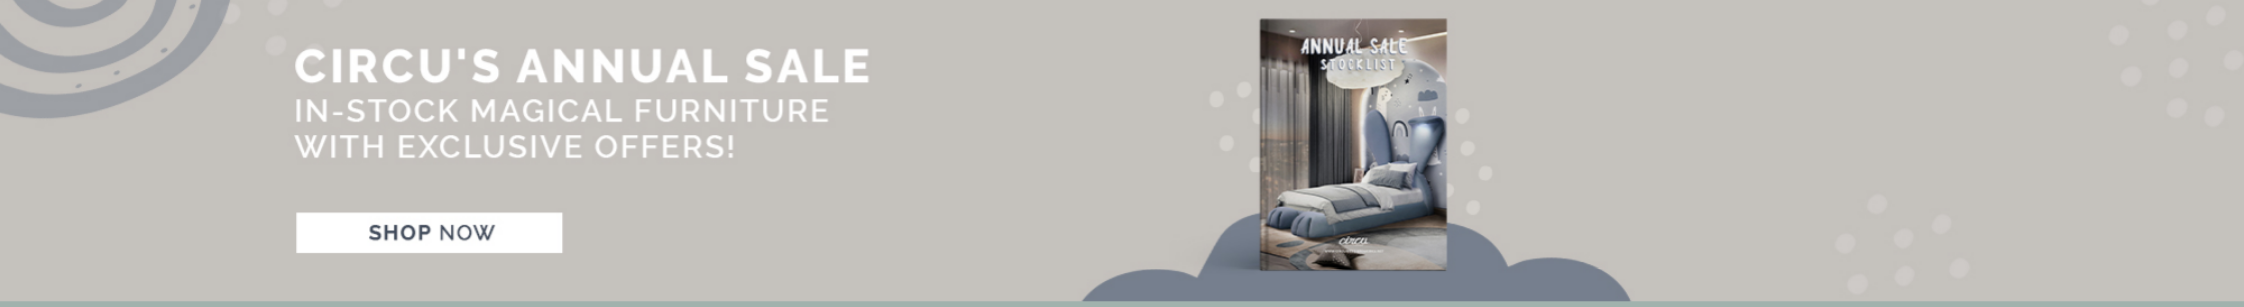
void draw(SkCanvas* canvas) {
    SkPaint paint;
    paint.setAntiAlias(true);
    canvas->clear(0xFFA1B2AD);
    canvas->drawImageRect(SkImages::DeferredFromEncodedData(SkData::MakeFromFileName("img1.png")), SkRect::MakeXYWH(0, 0, 2244, 302), SkSamplingOptions());
}
